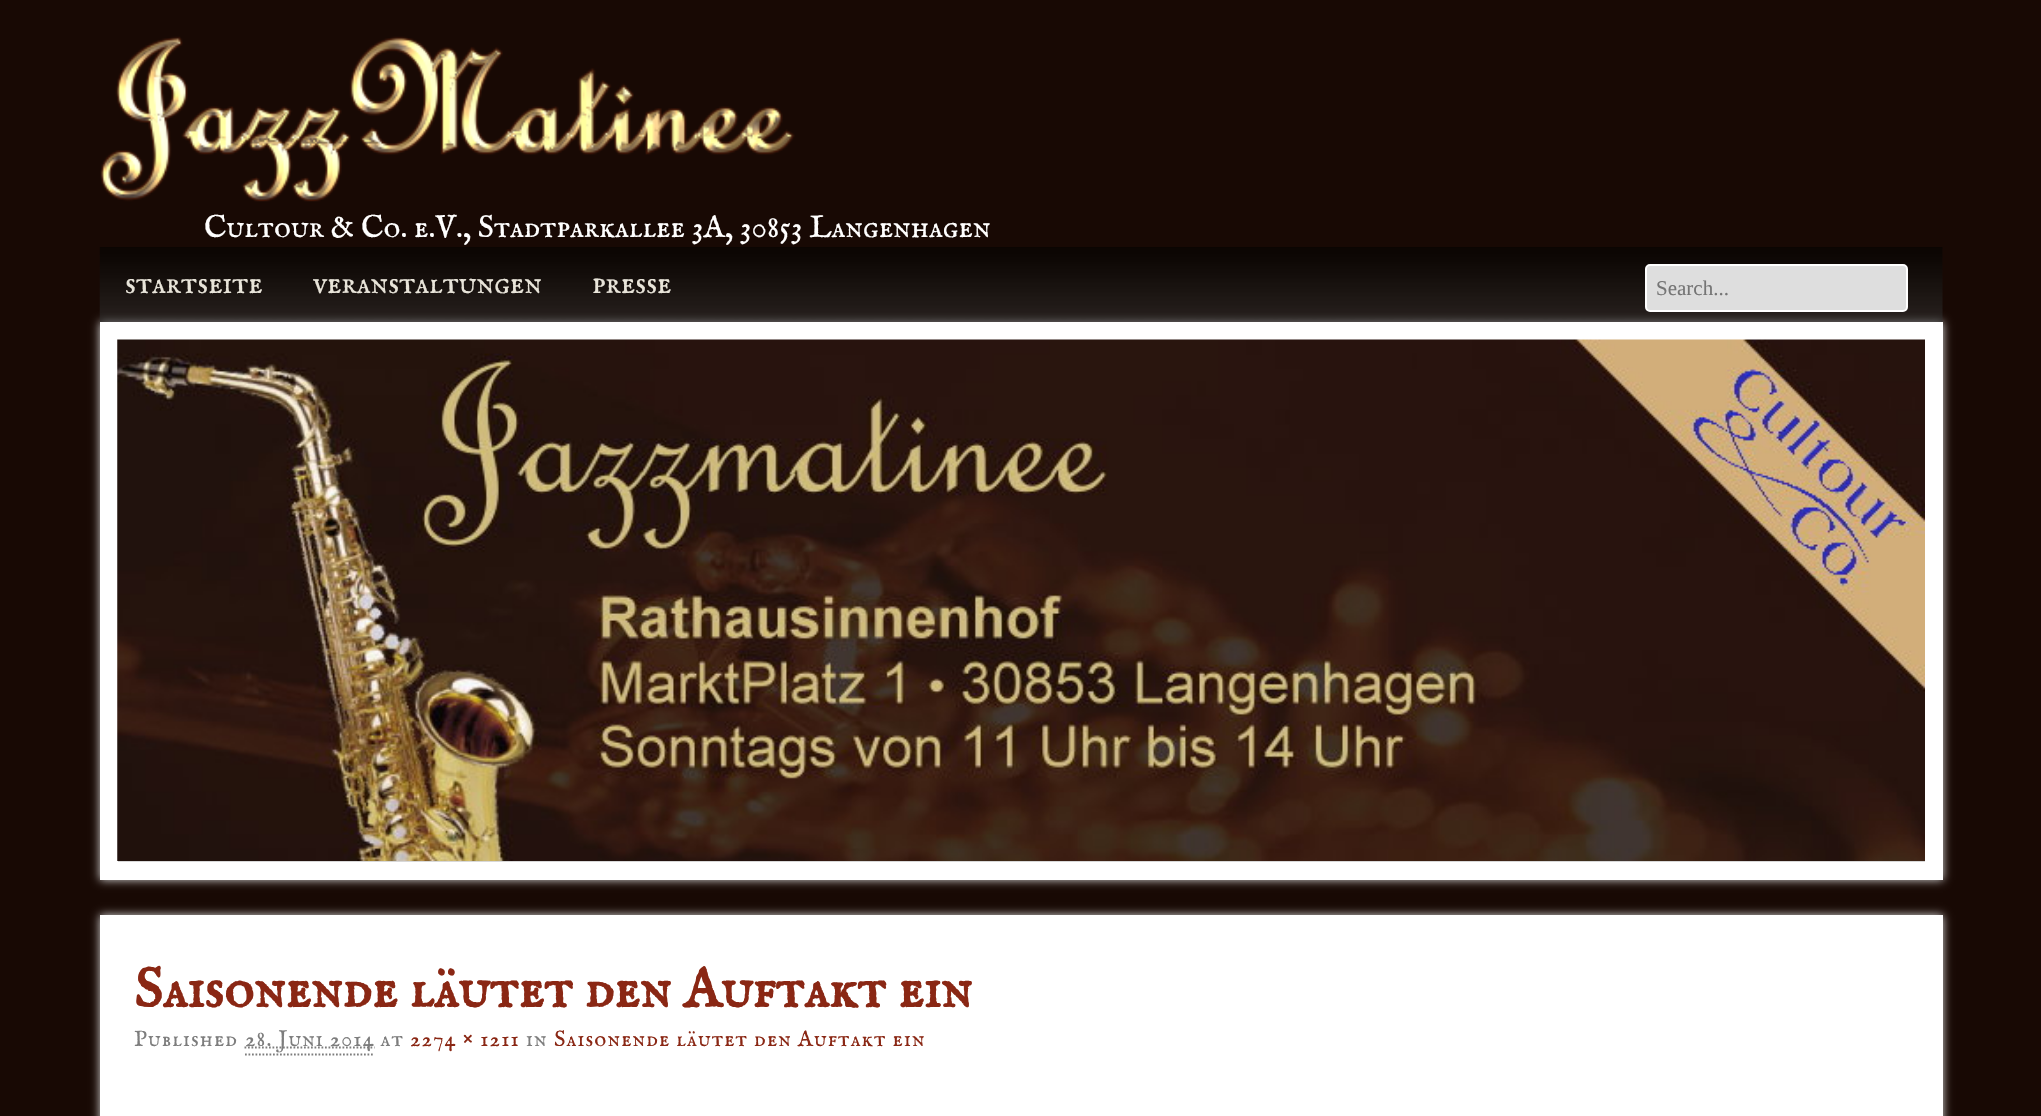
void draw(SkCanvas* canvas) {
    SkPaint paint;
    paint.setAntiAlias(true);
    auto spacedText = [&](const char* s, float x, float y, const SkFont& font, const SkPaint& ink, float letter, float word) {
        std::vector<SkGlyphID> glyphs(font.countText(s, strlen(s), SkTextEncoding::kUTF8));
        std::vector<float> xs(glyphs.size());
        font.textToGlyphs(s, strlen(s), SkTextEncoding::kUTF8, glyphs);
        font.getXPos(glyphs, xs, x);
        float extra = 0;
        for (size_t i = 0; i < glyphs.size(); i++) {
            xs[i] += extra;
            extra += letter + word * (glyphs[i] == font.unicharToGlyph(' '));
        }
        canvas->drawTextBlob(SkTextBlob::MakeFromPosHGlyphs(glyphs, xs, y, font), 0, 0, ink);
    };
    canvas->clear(0xFF180904);
    canvas->drawImageRect(SkImages::DeferredFromEncodedData(SkData::MakeFromFileName("img1.png")), SkRect::MakeXYWH(100, 36, 695, 166), SkSamplingOptions());
    SkFont font1(fontMgr->matchFamilyStyle("IM FELL English SC", SkFontStyle::Normal()), 31.5f);
    font1.setSubpixel(true);
    paint.setColor(0xFFFFFFFF);
    canvas->drawString("Cultour & Co. e.V., Stadtparkallee 3A, 30853 Langenhagen", 204, 237, font1, paint);
    paint.setColor(0xFFD8D8D8);
    paint.setMaskFilter(SkMaskFilter::MakeBlur(kNormal_SkBlurStyle, 4.5f));
    canvas->drawRect(SkRect::MakeXYWH(100, 322, 1843, 558), paint);
    paint.setMaskFilter(nullptr);
    canvas->drawImageRect(SkImages::DeferredFromEncodedData(SkData::MakeFromFileName("img2.png")), SkRect::MakeXYWH(99, 247, 1844, 75), SkSamplingOptions());
    paint.setColor(0xFFE8E4D9);
    canvas->drawString("startseite", 125, 293, font1, paint);
    canvas->drawString("veranstaltungen", 313, 293, font1, paint);
    canvas->drawString("presse", 592, 293, font1, paint);
    paint.setColor(0xFFDEDEDE);
    canvas->drawRoundRect(SkRect::MakeXYWH(1646, 265, 261, 46), 4, 4, paint);
    paint.setStyle(SkPaint::kStroke_Style);
    paint.setStrokeWidth(2);
    paint.setColor(0xFFFFFFFF);
    canvas->drawRoundRect(SkRect::MakeXYWH(1646, 265, 261, 46), 4, 4, paint);
    SkFont font2(fontMgr->matchFamilyStyle("Liberation Serif", SkFontStyle::Normal()), 21);
    font2.setSubpixel(true);
    paint.setStyle(SkPaint::kFill_Style);
    paint.setColor(0xFF757575);
    canvas->drawString("Search...", 1656, 295, font2, paint);
    paint.setStyle(SkPaint::kStroke_Style);
    paint.setStrokeWidth(18);
    paint.setColor(0xFFFFFFFF);
    canvas->drawRect(SkRect::MakeXYWH(109, 331, 1825, 540), paint);
    canvas->drawImageRect(SkImages::DeferredFromEncodedData(SkData::MakeFromFileName("img3.png")), SkRect::MakeXYWH(117, 339, 1808, 522), SkSamplingOptions());
    paint.setStyle(SkPaint::kFill_Style);
    paint.setColor(0xFFD8D8D8);
    paint.setMaskFilter(SkMaskFilter::MakeBlur(kNormal_SkBlurStyle, 4.5f));
    canvas->drawRect(SkRect::MakeXYWH(100, 915, 1843, 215), paint);
    paint.setMaskFilter(nullptr);
    paint.setColor(0xFFFFFFFF);
    canvas->drawRect(SkRect::MakeXYWH(100, 915, 1843, 201), paint);
    SkFont font3(fontMgr->matchFamilyStyle("IM FELL English SC", SkFontStyle::Bold()), 56);
    font3.setSubpixel(true);
    paint.setColor(0xFF8A2714);
    canvas->drawString("Saisonende läutet den Auftakt ein", 134, 1007, font3, paint);
    SkFont font4(fontMgr->matchFamilyStyle("IM FELL English SC", SkFontStyle::Normal()), 22.4f);
    font4.setSubpixel(true);
    paint.setColor(0xFF7D7D7D);
    spacedText("Published", 134, 1046, font4, paint, 1.1f, 0);
    paint.setStyle(SkPaint::kStroke_Style);
    paint.setStrokeWidth(1.8f);
    paint.setPathEffect(SkDashPathEffect::Make({{1.75f, 1.75f}}, 0));
    canvas->drawPath(SkPathBuilder().moveTo(244.5f, 1047.5f).lineTo(374.5f, 1047.5f).detach(), paint);
    paint.setPathEffect(nullptr);
    paint.setStyle(SkPaint::kFill_Style);
    spacedText("28. Juni 2014 at", 245, 1046, font4, paint, 1.1f, 0);
    paint.setStyle(SkPaint::kStroke_Style);
    paint.setPathEffect(SkDashPathEffect::Make({{1.75f, 1.75f}}, 0));
    canvas->drawPath(SkPathBuilder().moveTo(245, 1054.5f).lineTo(374.5f, 1054.5f).detach(), paint);
    paint.setPathEffect(nullptr);
    paint.setStyle(SkPaint::kFill_Style);
    paint.setColor(0xFF8A2714);
    spacedText("2274 × 1211", 410, 1046, font4, paint, 1.1f, 0);
    paint.setColor(0xFF7D7D7D);
    spacedText("in", 526, 1046, font4, paint, 1.1f, 0);
    paint.setColor(0xFF8A2714);
    spacedText("Saisonende läutet den Auftakt ein", 554, 1046, font4, paint, 1.1f, 0);
}
